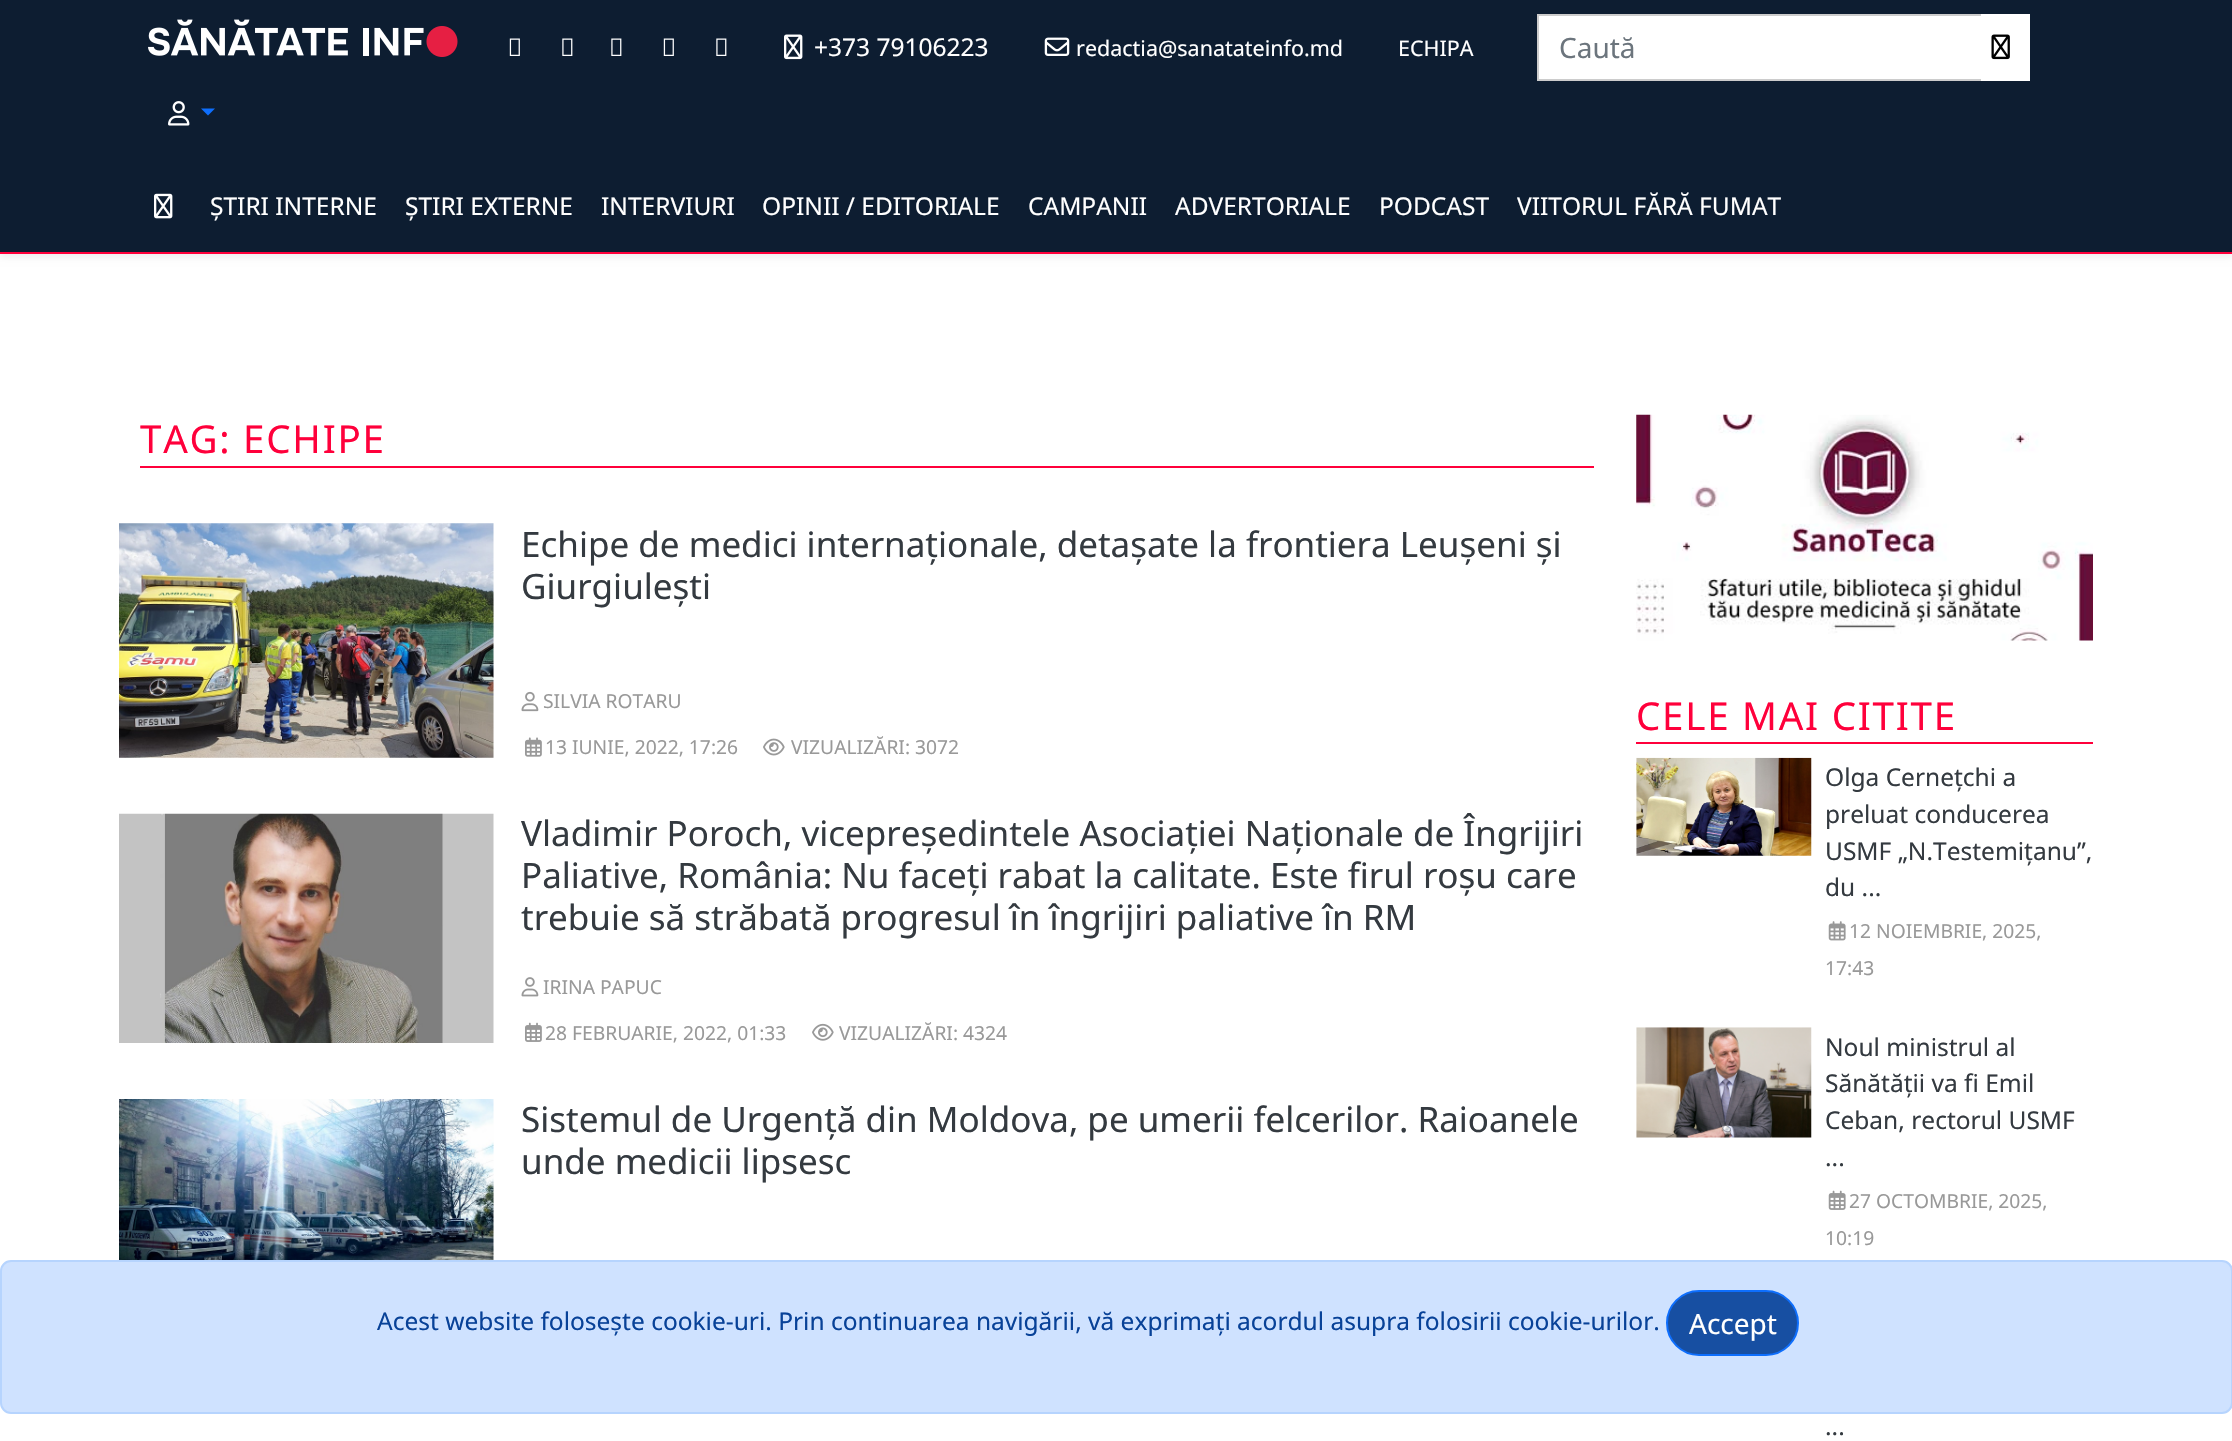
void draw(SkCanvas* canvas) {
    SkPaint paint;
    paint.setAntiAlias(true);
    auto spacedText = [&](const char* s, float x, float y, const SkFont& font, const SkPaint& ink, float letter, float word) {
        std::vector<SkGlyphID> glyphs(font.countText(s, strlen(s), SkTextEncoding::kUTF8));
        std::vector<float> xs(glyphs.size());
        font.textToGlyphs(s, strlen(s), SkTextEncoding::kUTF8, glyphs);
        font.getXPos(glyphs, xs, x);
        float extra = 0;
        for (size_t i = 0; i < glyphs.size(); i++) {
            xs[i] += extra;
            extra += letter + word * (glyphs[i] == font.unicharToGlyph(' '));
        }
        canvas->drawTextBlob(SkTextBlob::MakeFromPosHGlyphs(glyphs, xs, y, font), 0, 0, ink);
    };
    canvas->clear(0xFFFFFFFF);
    paint.setColor(0xFF0D1D31);
    canvas->drawRect(SkRect::MakeXYWH(0, 0, 2232, 159), paint);
    canvas->drawImageRect(SkImages::DeferredFromEncodedData(SkData::MakeFromFileName("img1.png")), SkRect::MakeXYWH(148, 19, 310, 38), SkSamplingOptions());
    canvas->drawImageRect(SkImages::DeferredFromEncodedData(SkData::MakeFromFileName("img2.png")), SkRect::MakeXYWH(509, 38, 11, 18), SkSamplingOptions());
    canvas->drawImageRect(SkImages::DeferredFromEncodedData(SkData::MakeFromFileName("img3.png")), SkRect::MakeXYWH(562, 38, 11, 18), SkSamplingOptions());
    canvas->drawImageRect(SkImages::DeferredFromEncodedData(SkData::MakeFromFileName("img3.png")), SkRect::MakeXYWH(611, 38, 11, 18), SkSamplingOptions());
    canvas->drawImageRect(SkImages::DeferredFromEncodedData(SkData::MakeFromFileName("img2.png")), SkRect::MakeXYWH(663, 38, 11, 18), SkSamplingOptions());
    canvas->drawImageRect(SkImages::DeferredFromEncodedData(SkData::MakeFromFileName("img3.png")), SkRect::MakeXYWH(716, 38, 11, 18), SkSamplingOptions());
    canvas->drawImageRect(SkImages::DeferredFromEncodedData(SkData::MakeFromFileName("img4.png")), SkRect::MakeXYWH(784, 34, 19, 26), SkSamplingOptions());
    SkFont font1(fontMgr->matchFamilyStyle("Noto Sans", SkFontStyle::Normal()), 24.5f);
    font1.setSubpixel(true);
    paint.setColor(0xFFFFFFFF);
    canvas->drawString("+373 79106223", 814, 56, font1, paint);
    canvas->drawImageRect(SkImages::DeferredFromEncodedData(SkData::MakeFromFileName("img5.png")), SkRect::MakeXYWH(1044, 37, 26, 19), SkSamplingOptions());
    SkFont font2(fontMgr->matchFamilyStyle("Noto Sans", SkFontStyle::Normal()), 21.5f);
    font2.setSubpixel(true);
    canvas->drawString("redactia@sanatateinfo.md", 1076, 56, font2, paint);
    canvas->drawString("ECHIPA", 1398, 56, font2, paint);
    canvas->drawRect(SkRect::MakeXYWH(1539, 16, 442, 63), paint);
    paint.setColor(0xFFCCCCCC);
    canvas->drawRect(SkRect::MakeXYWH(1537, 14, 444, 2), paint);
    canvas->drawRect(SkRect::MakeXYWH(1537, 79, 444, 2), paint);
    canvas->drawRect(SkRect::MakeXYWH(1537, 14, 2, 67), paint);
    SkFont font3(fontMgr->matchFamilyStyle("Noto Sans", SkFontStyle::Normal()), 28);
    font3.setSubpixel(true);
    paint.setColor(0xFF6C757D);
    canvas->drawString("Caută", 1559, 58, font3, paint);
    paint.setColor(0xFFFFFFFF);
    canvas->drawRect(SkRect::MakeXYWH(1981, 14, 49, 67), paint);
    canvas->drawImageRect(SkImages::DeferredFromEncodedData(SkData::MakeFromFileName("img6.png")), SkRect::MakeXYWH(1991, 34, 19, 26), SkSamplingOptions());
    canvas->drawImageRect(SkImages::DeferredFromEncodedData(SkData::MakeFromFileName("img7.png")), SkRect::MakeXYWH(168, 101, 22, 25), SkSamplingOptions());
    paint.setColor(0xFF0D6EFD);
    canvas->drawPath(SkPathBuilder().moveTo(201, 108.5f).lineTo(215, 108.5f).lineTo(208, 115.5f).close().detach(), paint);
    paint.setColor(0x12000000);
    paint.setMaskFilter(SkMaskFilter::MakeBlur(kNormal_SkBlurStyle, 3.5f));
    canvas->drawRect(SkRect::MakeXYWH(0, 163, 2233, 94), paint);
    paint.setMaskFilter(nullptr);
    paint.setColor(0xFF0D1D31);
    canvas->drawRect(SkRect::MakeXYWH(0, 159, 2232, 93), paint);
    paint.setColor(0xFFFF003B);
    canvas->drawRect(SkRect::MakeXYWH(0, 252, 2232, 2), paint);
    canvas->drawImageRect(SkImages::DeferredFromEncodedData(SkData::MakeFromFileName("img8.png")), SkRect::MakeXYWH(154, 193, 19, 26), SkSamplingOptions());
    paint.setColor(0xFFFFFFFF);
    canvas->drawString("ȘTIRI INTERNE", 210, 215, font1, paint);
    canvas->drawString("ȘTIRI EXTERNE", 405, 215, font1, paint);
    canvas->drawString("INTERVIURI", 601, 215, font1, paint);
    canvas->drawString("OPINII / EDITORIALE", 762, 215, font1, paint);
    canvas->drawString("CAMPANII", 1028, 215, font1, paint);
    canvas->drawString("ADVERTORIALE", 1175, 215, font1, paint);
    canvas->drawString("PODCAST", 1379, 215, font1, paint);
    canvas->drawString("VIITORUL FĂRĂ FUMAT", 1517, 215, font1, paint);
    paint.setColor(0xFFFF003B);
    canvas->drawRect(SkRect::MakeXYWH(140, 466, 1454, 2), paint);
    SkFont font4(fontMgr->matchFamilyStyle("Noto Sans", SkFontStyle::Normal()), 38.5f);
    font4.setSubpixel(true);
    spacedText("TAG: ECHIPE", 140, 453, font4, paint, 1.75f, 0);
    canvas->drawImageRect(SkImages::DeferredFromEncodedData(SkData::MakeFromFileName("img9.png")), SkRect::MakeXYWH(119, 523, 375, 235), SkSamplingOptions());
    SkFont font5(fontMgr->matchFamilyStyle("Noto Sans", SkFontStyle::Normal()), 35);
    font5.setSubpixel(true);
    paint.setColor(0xFF343A40);
    canvas->drawString("Echipe de medici internaționale, detașate la frontiera Leușeni și", 521, 557, font5, paint);
    canvas->drawString("Giurgiulești", 521, 599, font5, paint);
    canvas->drawImageRect(SkImages::DeferredFromEncodedData(SkData::MakeFromFileName("img10.png")), SkRect::MakeXYWH(521, 691, 18, 21), SkSamplingOptions());
    SkFont font6(fontMgr->matchFamilyStyle("Noto Sans", SkFontStyle::Normal()), 19.25f);
    font6.setSubpixel(true);
    paint.setColor(0xFF999999);
    canvas->drawString("SILVIA ROTARU", 543, 708, font6, paint);
    canvas->drawImageRect(SkImages::DeferredFromEncodedData(SkData::MakeFromFileName("img11.png")), SkRect::MakeXYWH(525, 737, 17, 20), SkSamplingOptions());
    canvas->drawString("13 IUNIE, 2022, 17:26", 545, 754, font6, paint);
    canvas->drawImageRect(SkImages::DeferredFromEncodedData(SkData::MakeFromFileName("img12.png")), SkRect::MakeXYWH(763, 738, 22, 18), SkSamplingOptions());
    canvas->drawString("VIZUALIZĂRI: 3072", 791, 754, font6, paint);
    canvas->drawImageRect(SkImages::DeferredFromEncodedData(SkData::MakeFromFileName("img13.png")), SkRect::MakeXYWH(119, 813, 375, 230), SkSamplingOptions());
    paint.setColor(0xFF343A40);
    canvas->drawString("Vladimir Poroch, vicepreședintele Asociației Naționale de Îngrijiri", 521, 846, font5, paint);
    canvas->drawString("Paliative, România: Nu faceți rabat la calitate. Este firul roșu care", 521, 888, font5, paint);
    canvas->drawString("trebuie să străbată progresul în îngrijiri paliative în RM", 521, 930, font5, paint);
    canvas->drawImageRect(SkImages::DeferredFromEncodedData(SkData::MakeFromFileName("img14.png")), SkRect::MakeXYWH(521, 977, 18, 20), SkSamplingOptions());
    paint.setColor(0xFF999999);
    canvas->drawString("IRINA PAPUC", 543, 994, font6, paint);
    canvas->drawImageRect(SkImages::DeferredFromEncodedData(SkData::MakeFromFileName("img15.png")), SkRect::MakeXYWH(525, 1022, 17, 20), SkSamplingOptions());
    canvas->drawString("28 FEBRUARIE, 2022, 01:33", 545, 1040, font6, paint);
    canvas->drawImageRect(SkImages::DeferredFromEncodedData(SkData::MakeFromFileName("img16.png")), SkRect::MakeXYWH(812, 1023, 22, 18), SkSamplingOptions());
    canvas->drawString("VIZUALIZĂRI: 4324", 839, 1040, font6, paint);
    canvas->drawImageRect(SkImages::DeferredFromEncodedData(SkData::MakeFromFileName("img17.png")), SkRect::MakeXYWH(119, 1099, 375, 161), SkSamplingOptions());
    paint.setColor(0xFF343A40);
    canvas->drawString("Sistemul de Urgență din Moldova, pe umerii felcerilor. Raioanele", 521, 1132, font5, paint);
    canvas->drawString("unde medicii lipsesc", 521, 1174, font5, paint);
    canvas->drawImageRect(SkImages::DeferredFromEncodedData(SkData::MakeFromFileName("img18.png")), SkRect::MakeXYWH(1636, 414, 457, 227), SkSamplingOptions());
    paint.setColor(0xFFFF003B);
    canvas->drawRect(SkRect::MakeXYWH(1636, 742, 457, 2), paint);
    spacedText("CELE MAI CITITE", 1636, 730, font4, paint, 1.75f, 0);
    canvas->drawImageRect(SkImages::DeferredFromEncodedData(SkData::MakeFromFileName("img19.png")), SkRect::MakeXYWH(1636, 757, 176, 99), SkSamplingOptions());
    paint.setColor(0xFF343A40);
    canvas->drawString("Olga Cernețchi a", 1825, 786, font1, paint);
    canvas->drawString("preluat conducerea", 1825, 823, font1, paint);
    canvas->drawString("USMF „N.Testemițanu”,", 1825, 860, font1, paint);
    canvas->drawString("du ...", 1825, 896, font1, paint);
    canvas->drawImageRect(SkImages::DeferredFromEncodedData(SkData::MakeFromFileName("img20.png")), SkRect::MakeXYWH(1828, 921, 18, 20), SkSamplingOptions());
    paint.setColor(0xFF999999);
    canvas->drawString("12 NOIEMBRIE, 2025,", 1849, 938, font6, paint);
    canvas->drawString("17:43", 1825, 975, font6, paint);
    canvas->drawImageRect(SkImages::DeferredFromEncodedData(SkData::MakeFromFileName("img21.png")), SkRect::MakeXYWH(1636, 1027, 176, 111), SkSamplingOptions());
    paint.setColor(0xFF343A40);
    canvas->drawString("Noul ministrul al", 1825, 1056, font1, paint);
    canvas->drawString("Sănătății va fi Emil", 1825, 1092, font1, paint);
    canvas->drawString("Ceban, rectorul USMF", 1825, 1129, font1, paint);
    canvas->drawString("...", 1825, 1166, font1, paint);
    canvas->drawImageRect(SkImages::DeferredFromEncodedData(SkData::MakeFromFileName("img22.png")), SkRect::MakeXYWH(1828, 1190, 18, 20), SkSamplingOptions());
    paint.setColor(0xFF999999);
    canvas->drawString("27 OCTOMBRIE, 2025,", 1849, 1208, font6, paint);
    canvas->drawString("10:19", 1825, 1245, font6, paint);
    paint.setColor(0xFF343A40);
    canvas->drawString("...", 1825, 1435, font1, paint);
    paint.setColor(0xFFCFE2FF);
    canvas->drawRoundRect(SkRect::MakeXYWH(1, 1261, 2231, 152), 10, 10, paint);
    paint.setStyle(SkPaint::kStroke_Style);
    paint.setStrokeWidth(2);
    paint.setColor(0xFFB6D4FE);
    canvas->drawRoundRect(SkRect::MakeXYWH(1, 1261, 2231, 152), 10, 10, paint);
    paint.setStyle(SkPaint::kFill_Style);
    paint.setColor(0xFF084298);
    canvas->drawString("Acest website folosește cookie-uri. Prin continuarea navigării, vă exprimați acordul asupra folosirii cookie-urilor.", 377, 1330, font1, paint);
    paint.setColor(0xFF174FA2);
    canvas->drawRoundRect(SkRect::MakeXYWH(1667, 1291, 131, 64), 32, 32, paint);
    paint.setStyle(SkPaint::kStroke_Style);
    paint.setColor(0xFF0D6EFD);
    canvas->drawRoundRect(SkRect::MakeXYWH(1667, 1291, 131, 64), 32, 32, paint);
    paint.setStyle(SkPaint::kFill_Style);
    paint.setColor(0xFFFFFFFF);
    canvas->drawString("Accept", 1689, 1334, font3, paint);
}
